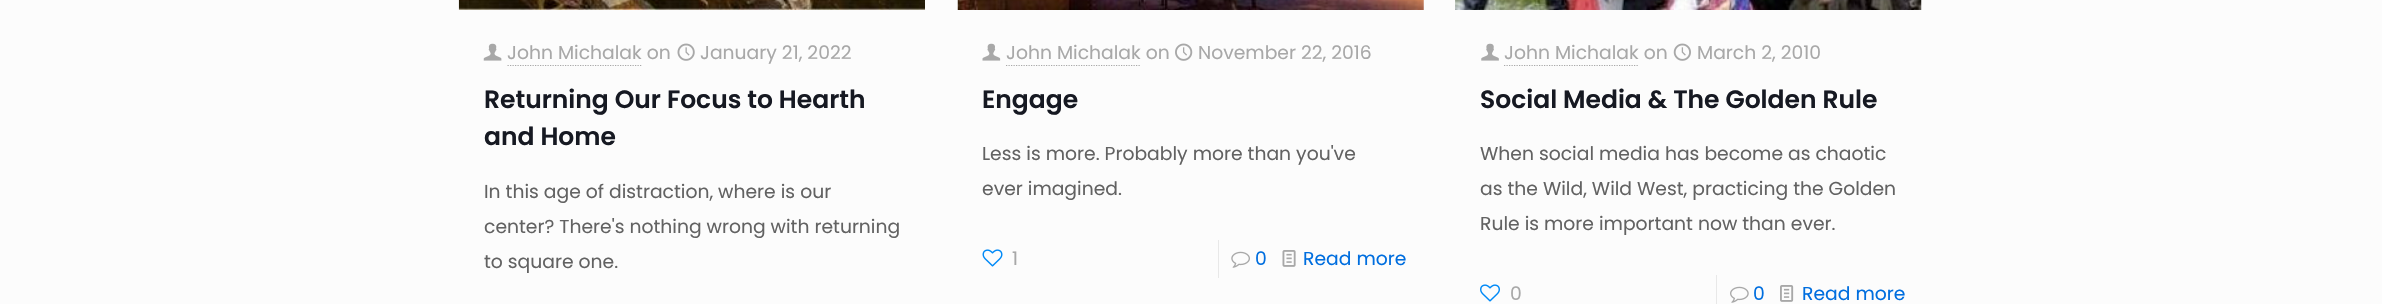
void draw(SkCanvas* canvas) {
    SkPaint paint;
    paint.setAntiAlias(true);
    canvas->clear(0xFFFCFCFC);
    canvas->drawImageRect(SkImages::DeferredFromEncodedData(SkData::MakeFromFileName("img1.png")), SkRect::MakeXYWH(458, 0, 467, 10), SkSamplingOptions());
    canvas->drawImageRect(SkImages::DeferredFromEncodedData(SkData::MakeFromFileName("img2.png")), SkRect::MakeXYWH(483, 43, 19, 18), SkSamplingOptions());
    SkFont font1(fontMgr->matchFamilyStyle("Poppins", SkFontStyle::Normal()), 18.75f);
    font1.setSubpixel(true);
    paint.setColor(0xFFA8A8A8);
    canvas->drawString("John Michalak on", 507, 59, font1, paint);
    paint.setStyle(SkPaint::kStroke_Style);
    paint.setStrokeWidth(1.2f);
    paint.setPathEffect(SkDashPathEffect::Make({{1.25f, 1.25f}}, 0));
    canvas->drawPath(SkPathBuilder().moveTo(507.5f, 65.5f).lineTo(642.5f, 65.5f).detach(), paint);
    paint.setPathEffect(nullptr);
    canvas->drawImageRect(SkImages::DeferredFromEncodedData(SkData::MakeFromFileName("img3.png")), SkRect::MakeXYWH(677, 43, 18, 18), SkSamplingOptions());
    paint.setStyle(SkPaint::kFill_Style);
    canvas->drawString("January 21, 2022", 700, 59, font1, paint);
    SkFont font2(fontMgr->matchFamilyStyle("Poppins", SkFontStyle(600, SkFontStyle::kNormal_Width, SkFontStyle::kUpright_Slant)), 25);
    font2.setSubpixel(true);
    paint.setColor(0xFF161922);
    canvas->drawString("Returning Our Focus to Hearth", 484, 108, font2, paint);
    canvas->drawString("and Home", 484, 145, font2, paint);
    paint.setColor(0xFF626262);
    canvas->drawString("In this age of distraction, where is our", 484, 198, font1, paint);
    canvas->drawString("center? There's nothing wrong with returning", 484, 233, font1, paint);
    canvas->drawString("to square one.", 484, 268, font1, paint);
    canvas->drawImageRect(SkImages::DeferredFromEncodedData(SkData::MakeFromFileName("img4.png")), SkRect::MakeXYWH(957, 0, 467, 10), SkSamplingOptions());
    canvas->drawImageRect(SkImages::DeferredFromEncodedData(SkData::MakeFromFileName("img5.png")), SkRect::MakeXYWH(982, 43, 19, 18), SkSamplingOptions());
    paint.setColor(0xFFA8A8A8);
    canvas->drawString("John Michalak on", 1006, 59, font1, paint);
    paint.setStyle(SkPaint::kStroke_Style);
    paint.setPathEffect(SkDashPathEffect::Make({{1.25f, 1.25f}}, 0));
    canvas->drawPath(SkPathBuilder().moveTo(1006, 65.5f).lineTo(1140, 65.5f).detach(), paint);
    paint.setPathEffect(nullptr);
    canvas->drawImageRect(SkImages::DeferredFromEncodedData(SkData::MakeFromFileName("img6.png")), SkRect::MakeXYWH(1175, 43, 18, 18), SkSamplingOptions());
    paint.setStyle(SkPaint::kFill_Style);
    canvas->drawString("November 22, 2016", 1198, 59, font1, paint);
    paint.setColor(0xFF161922);
    canvas->drawString("Engage", 982, 108, font2, paint);
    paint.setColor(0xFF626262);
    canvas->drawString("Less is more. Probably more than you've", 982, 160, font1, paint);
    canvas->drawString("ever imagined.", 982, 195, font1, paint);
    canvas->drawImageRect(SkImages::DeferredFromEncodedData(SkData::MakeFromFileName("img7.png")), SkRect::MakeXYWH(982, 249, 21, 18), SkSamplingOptions());
    paint.setColor(0xFFA8A8A8);
    canvas->drawString("1", 1012, 265, font1, paint);
    paint.setColor(0xFFE8E8E8);
    canvas->drawRect(SkRect::MakeXYWH(1218, 240, 1, 38), paint);
    canvas->drawImageRect(SkImages::DeferredFromEncodedData(SkData::MakeFromFileName("img8.png")), SkRect::MakeXYWH(1231, 251, 19, 17), SkSamplingOptions());
    paint.setColor(0xFF006EDF);
    canvas->drawString("0", 1255, 265, font1, paint);
    canvas->drawImageRect(SkImages::DeferredFromEncodedData(SkData::MakeFromFileName("img9.png")), SkRect::MakeXYWH(1282, 250, 14, 17), SkSamplingOptions());
    canvas->drawString("Read more", 1303, 265, font1, paint);
    canvas->drawImageRect(SkImages::DeferredFromEncodedData(SkData::MakeFromFileName("img10.png")), SkRect::MakeXYWH(1455, 0, 467, 10), SkSamplingOptions());
    canvas->drawImageRect(SkImages::DeferredFromEncodedData(SkData::MakeFromFileName("img11.png")), SkRect::MakeXYWH(1481, 43, 18, 18), SkSamplingOptions());
    paint.setColor(0xFFA8A8A8);
    canvas->drawString("John Michalak on", 1504, 59, font1, paint);
    paint.setStyle(SkPaint::kStroke_Style);
    paint.setPathEffect(SkDashPathEffect::Make({{1.25f, 1.25f}}, 0));
    canvas->drawPath(SkPathBuilder().moveTo(1504, 65.5f).lineTo(1639, 65.5f).detach(), paint);
    paint.setPathEffect(nullptr);
    canvas->drawImageRect(SkImages::DeferredFromEncodedData(SkData::MakeFromFileName("img12.png")), SkRect::MakeXYWH(1673, 43, 18, 18), SkSamplingOptions());
    paint.setStyle(SkPaint::kFill_Style);
    canvas->drawString("March 2, 2010", 1697, 59, font1, paint);
    paint.setColor(0xFF161922);
    canvas->drawString("Social Media & The Golden Rule", 1480, 108, font2, paint);
    paint.setColor(0xFF626262);
    canvas->drawString("When social media has become as chaotic", 1480, 160, font1, paint);
    canvas->drawString("as the Wild, Wild West, practicing the Golden", 1480, 195, font1, paint);
    canvas->drawString("Rule is more important now than ever.", 1480, 230, font1, paint);
    canvas->drawImageRect(SkImages::DeferredFromEncodedData(SkData::MakeFromFileName("img13.png")), SkRect::MakeXYWH(1480, 284, 20, 18), SkSamplingOptions());
    paint.setColor(0xFFA8A8A8);
    canvas->drawString("0", 1510, 300, font1, paint);
    paint.setColor(0xFFE8E8E8);
    canvas->drawRect(SkRect::MakeXYWH(1716, 275, 1, 29), paint);
    canvas->drawImageRect(SkImages::DeferredFromEncodedData(SkData::MakeFromFileName("img14.png")), SkRect::MakeXYWH(1730, 286, 19, 17), SkSamplingOptions());
    paint.setColor(0xFF006EDF);
    canvas->drawString("0", 1753, 300, font1, paint);
    canvas->drawImageRect(SkImages::DeferredFromEncodedData(SkData::MakeFromFileName("img15.png")), SkRect::MakeXYWH(1780, 285, 14, 17), SkSamplingOptions());
    canvas->drawString("Read more", 1802, 300, font1, paint);
}
